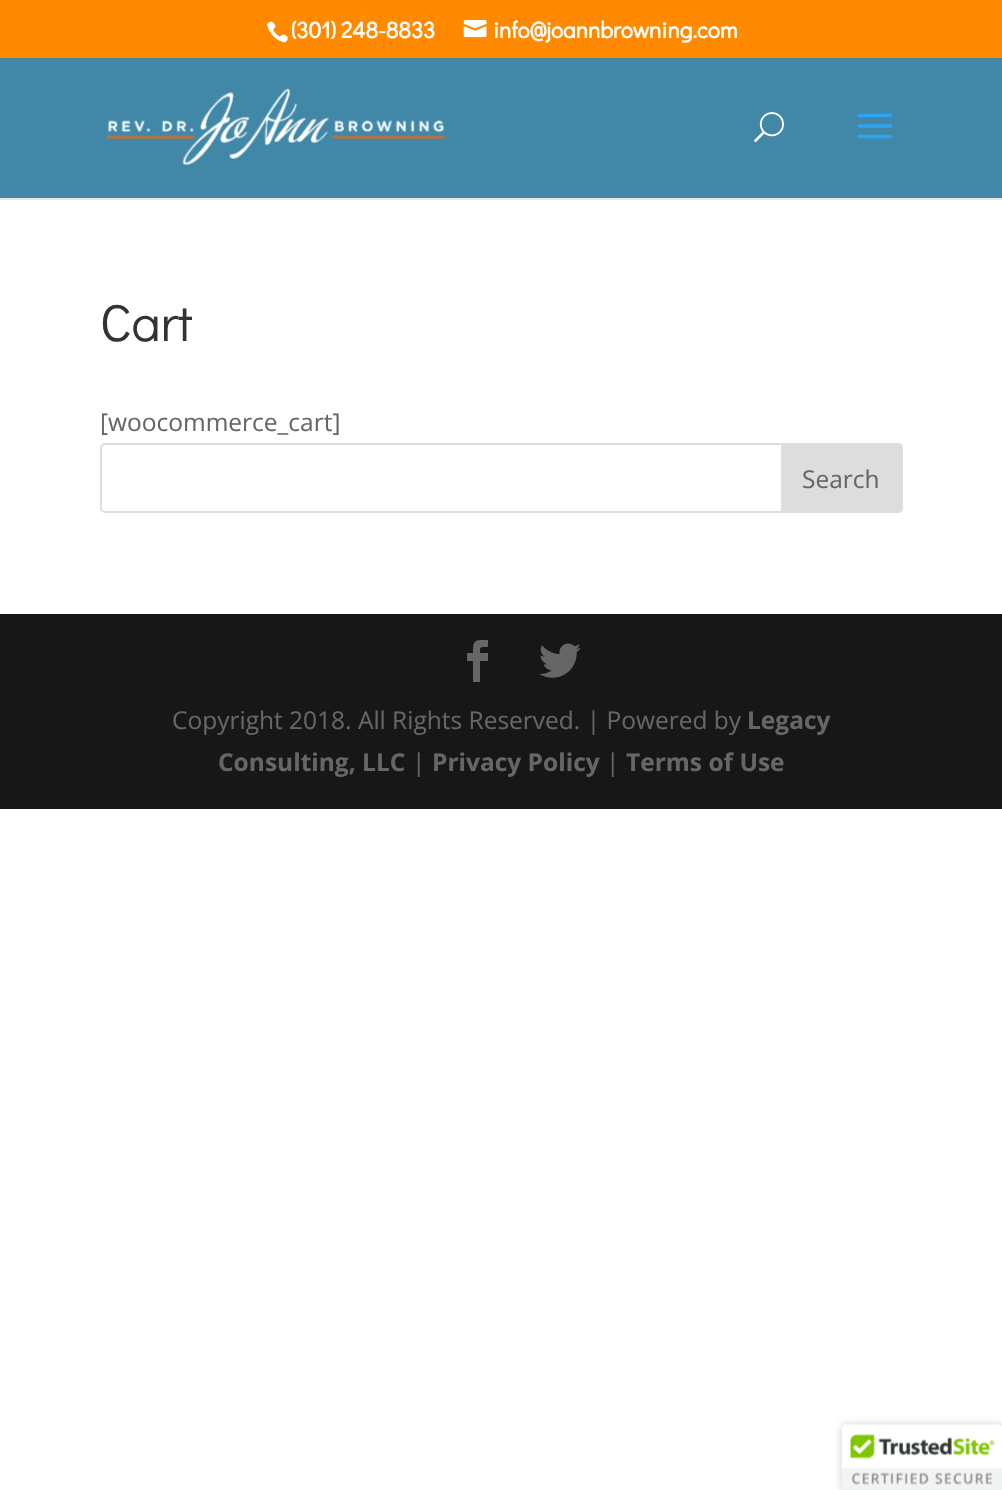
void draw(SkCanvas* canvas) {
    SkPaint paint;
    paint.setAntiAlias(true);
    canvas->clear(0xFFFFFFFF);
    paint.setColor(0xFFFF8A00);
    canvas->drawRect(SkRect::MakeXYWH(0, 0, 1002, 58), paint);
    canvas->drawImageRect(SkImages::DeferredFromEncodedData(SkData::MakeFromFileName("img1.png")), SkRect::MakeXYWH(267, 21, 21, 22), SkSamplingOptions());
    SkFont font1(fontMgr->matchFamilyStyle("Didact Gothic", SkFontStyle::Bold()), 22.75f);
    font1.setSubpixel(true);
    paint.setColor(0xFFFFFFFF);
    canvas->drawString("(301) 248-8833", 291, 38, font1, paint);
    canvas->drawImageRect(SkImages::DeferredFromEncodedData(SkData::MakeFromFileName("img2.png")), SkRect::MakeXYWH(463, 20, 24, 18), SkSamplingOptions());
    canvas->drawString("info@joannbrowning.com", 493, 38, font1, paint);
    paint.setColor(0xFFE6E6E6);
    canvas->drawPath(SkPathBuilder().moveTo(0, 198).lineTo(0, 200).lineTo(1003, 200).lineTo(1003, 60).lineTo(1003, 198).close().detach(), paint);
    paint.setColor(0xFF4188A8);
    canvas->drawRect(SkRect::MakeXYWH(0, 58, 1002, 140), paint);
    canvas->drawImageRect(SkImages::DeferredFromEncodedData(SkData::MakeFromFileName("img3.png")), SkRect::MakeXYWH(106, 88, 339, 77), SkSamplingOptions());
    canvas->drawImageRect(SkImages::DeferredFromEncodedData(SkData::MakeFromFileName("img4.png")), SkRect::MakeXYWH(754, 112, 30, 30), SkSamplingOptions());
    canvas->drawImageRect(SkImages::DeferredFromEncodedData(SkData::MakeFromFileName("img5.png")), SkRect::MakeXYWH(857, 113, 36, 26), SkSamplingOptions());
    SkFont font2(fontMgr->matchFamilyStyle("Didact Gothic", SkFontStyle::Normal()), 52);
    font2.setSubpixel(true);
    paint.setColor(0xFF333333);
    canvas->drawString("Cart", 100, 341, font2, paint);
    SkFont font3(fontMgr->matchFamilyStyle("Open Sans", SkFontStyle::Normal()), 24.5f);
    font3.setSubpixel(true);
    paint.setColor(0xFF666666);
    canvas->drawString("[woocommerce_cart]", 100, 431, font3, paint);
    paint.setStyle(SkPaint::kStroke_Style);
    paint.setStrokeWidth(2);
    paint.setColor(0xFFDDDDDD);
    canvas->drawRoundRect(SkRect::MakeXYWH(101, 444, 801, 68), 4, 4, paint);
    paint.setStyle(SkPaint::kFill_Style);
    canvas->drawPath(SkPathBuilder().moveTo(782, 444).lineTo(898, 444).cubicTo(900, 444, 902, 446, 902, 448).lineTo(902, 508).cubicTo(902, 510, 900, 512, 898, 512).lineTo(782, 512).close().detach(), paint);
    paint.setStyle(SkPaint::kStroke_Style);
    canvas->drawPath(SkPathBuilder().moveTo(782, 444).lineTo(898, 444).cubicTo(900, 444, 902, 446, 902, 448).lineTo(902, 508).cubicTo(902, 510, 900, 512, 898, 512).lineTo(782, 512).close().detach(), paint);
    paint.setStyle(SkPaint::kFill_Style);
    paint.setColor(0xFF666666);
    canvas->drawString("Search", 802, 488, font3, paint);
    paint.setColor(0xFF171717);
    canvas->drawRect(SkRect::MakeXYWH(0, 614, 1002, 195), paint);
    paint.setColor(0xFF666666);
    canvas->drawPath(SkPathBuilder().moveTo(473, 682).lineTo(480, 682).lineTo(480, 661).lineTo(488, 661).lineTo(488, 653).lineTo(480, 653).cubicTo(480, 646, 480, 647, 488, 647).lineTo(488, 640).cubicTo(475, 640, 473, 639, 473, 653).lineTo(467, 653).lineTo(467, 661).lineTo(473, 661).close().detach(), paint);
    canvas->drawImageRect(SkImages::DeferredFromEncodedData(SkData::MakeFromFileName("img6.png")), SkRect::MakeXYWH(539, 643, 42, 35), SkSamplingOptions());
    canvas->drawString("Copyright 2018. All Rights Reserved. | Powered by", 172, 729, font3, paint);
    SkFont font4(fontMgr->matchFamilyStyle("Open Sans", SkFontStyle::Bold()), 24.5f);
    font4.setSubpixel(true);
    canvas->drawString("Legacy", 747, 729, font4, paint);
    canvas->drawString("Consulting, LLC", 218, 771, font4, paint);
    canvas->drawString("|", 412, 771, font3, paint);
    canvas->drawString("Privacy Policy", 432, 771, font4, paint);
    canvas->drawString("|", 606, 771, font3, paint);
    canvas->drawString("Terms of Use", 626, 771, font4, paint);
    paint.setColor(0x33000000);
    paint.setMaskFilter(SkMaskFilter::MakeBlur(kNormal_SkBlurStyle, 4.5f));
    canvas->drawRoundRect(SkRect::MakeXYWH(842, 1425, 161, 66), 4, 4, paint);
    paint.setMaskFilter(nullptr);
    canvas->drawImageRect(SkImages::DeferredFromEncodedData(SkData::MakeFromFileName("img7.png")), SkRect::MakeXYWH(841, 1424, 161, 66), SkSamplingOptions());
}
